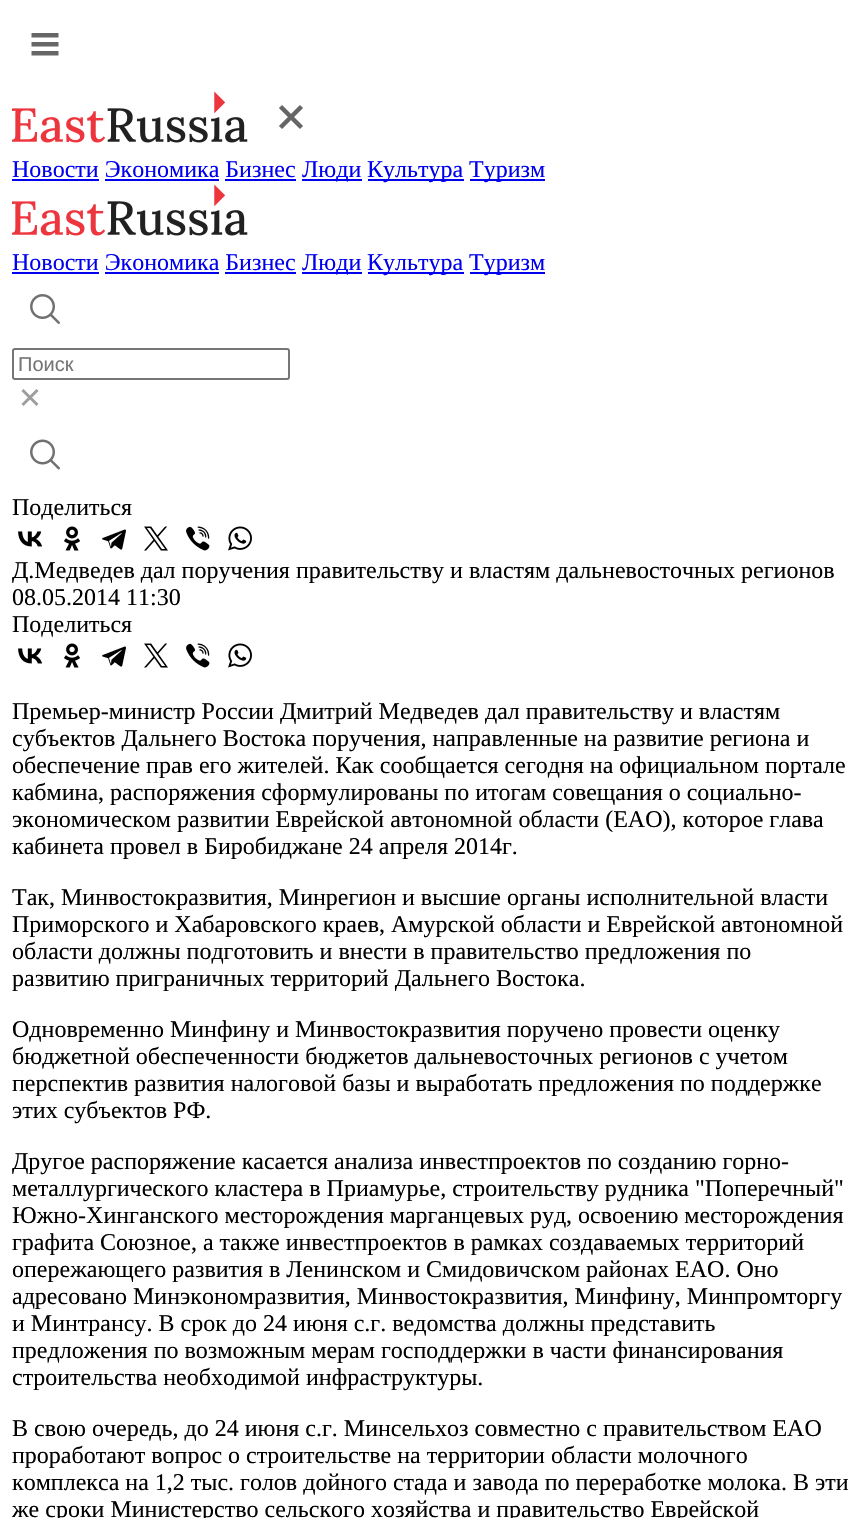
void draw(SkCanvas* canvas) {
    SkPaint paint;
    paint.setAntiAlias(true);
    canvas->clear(0xFFFFFFFF);
    canvas->drawImageRect(SkImages::DeferredFromEncodedData(SkData::MakeFromFileName("img1.png")), SkRect::MakeXYWH(31, 33, 28, 23), SkSamplingOptions());
    canvas->drawImageRect(SkImages::DeferredFromEncodedData(SkData::MakeFromFileName("img2.png")), SkRect::MakeXYWH(12, 91, 236, 52), SkSamplingOptions());
    paint.setStyle(SkPaint::kStroke_Style);
    paint.setStrokeWidth(4.5f);
    paint.setColor(0xFF666666);
    canvas->drawPath(SkPathBuilder().moveTo(280.5f, 106.5f).lineTo(291, 117).moveTo(301.5f, 127.5f).lineTo(291, 117).moveTo(291, 117).lineTo(301.5f, 106.5f).moveTo(291, 117).lineTo(280.5f, 127.5f).detach(), paint);
    SkFont font1(fontMgr->matchFamilyStyle("Liberation Serif", SkFontStyle::Normal()), 24);
    font1.setSubpixel(true);
    paint.setStyle(SkPaint::kFill_Style);
    paint.setColor(0xFF0000EE);
    canvas->drawString("Новости Экономика Бизнес", 12, 177, font1, paint);
    canvas->drawRect(SkRect::MakeXYWH(12, 179, 87, 2), paint);
    canvas->drawRect(SkRect::MakeXYWH(302, 179, 60, 2), paint);
    canvas->drawString("Люди", 302, 177, font1, paint);
    canvas->drawRect(SkRect::MakeXYWH(368, 179, 96, 2), paint);
    canvas->drawString("Культура", 367, 177, font1, paint);
    canvas->drawRect(SkRect::MakeXYWH(470, 179, 75, 2), paint);
    canvas->drawString("Туризм", 469, 177, font1, paint);
    canvas->drawRect(SkRect::MakeXYWH(105, 179, 114, 2), paint);
    canvas->drawRect(SkRect::MakeXYWH(225, 179, 71, 2), paint);
    canvas->drawImageRect(SkImages::DeferredFromEncodedData(SkData::MakeFromFileName("img2.png")), SkRect::MakeXYWH(12, 184, 236, 52), SkSamplingOptions());
    canvas->drawString("Новости Экономика Бизнес", 12, 270, font1, paint);
    canvas->drawRect(SkRect::MakeXYWH(12, 272, 87, 2), paint);
    canvas->drawRect(SkRect::MakeXYWH(302, 272, 60, 2), paint);
    canvas->drawString("Люди", 302, 270, font1, paint);
    canvas->drawRect(SkRect::MakeXYWH(368, 272, 96, 2), paint);
    canvas->drawString("Культура", 367, 270, font1, paint);
    canvas->drawRect(SkRect::MakeXYWH(470, 272, 75, 2), paint);
    canvas->drawString("Туризм", 469, 270, font1, paint);
    canvas->drawRect(SkRect::MakeXYWH(105, 272, 114, 2), paint);
    canvas->drawRect(SkRect::MakeXYWH(225, 272, 71, 2), paint);
    canvas->drawImageRect(SkImages::DeferredFromEncodedData(SkData::MakeFromFileName("img3.png")), SkRect::MakeXYWH(30, 294, 30, 30), SkSamplingOptions());
    paint.setStyle(SkPaint::kStroke_Style);
    paint.setStrokeWidth(2);
    paint.setColor(0xFF767676);
    canvas->drawRoundRect(SkRect::MakeXYWH(13, 349, 276, 30), 2, 2, paint);
    SkFont font2(fontMgr->matchFamilyStyle("Liberation Sans", SkFontStyle::Normal()), 20);
    font2.setSubpixel(true);
    paint.setStyle(SkPaint::kFill_Style);
    paint.setColor(0xFF757575);
    canvas->drawString("Поиск", 18, 371, font2, paint);
    paint.setStyle(SkPaint::kStroke_Style);
    paint.setStrokeWidth(3);
    paint.setColor(0xFF9E9E9E);
    canvas->drawPath(SkPathBuilder().moveTo(22.5f, 390).lineTo(30, 397.5f).moveTo(37.5f, 405).lineTo(30, 397.5f).moveTo(30, 397.5f).lineTo(37.5f, 390).moveTo(30, 397.5f).lineTo(22.5f, 405).detach(), paint);
    canvas->drawImageRect(SkImages::DeferredFromEncodedData(SkData::MakeFromFileName("img4.png")), SkRect::MakeXYWH(30, 439, 30, 31), SkSamplingOptions());
    paint.setStyle(SkPaint::kFill_Style);
    paint.setColor(0xFF000000);
    canvas->drawString("Поделиться", 12, 515, font1, paint);
    canvas->drawImageRect(SkImages::DeferredFromEncodedData(SkData::MakeFromFileName("img5.png")), SkRect::MakeXYWH(18, 531, 24, 16), SkSamplingOptions());
    canvas->drawImageRect(SkImages::DeferredFromEncodedData(SkData::MakeFromFileName("img6.png")), SkRect::MakeXYWH(64, 526, 16, 25), SkSamplingOptions());
    canvas->drawImageRect(SkImages::DeferredFromEncodedData(SkData::MakeFromFileName("img7.png")), SkRect::MakeXYWH(102, 529, 24, 21), SkSamplingOptions());
    canvas->drawImageRect(SkImages::DeferredFromEncodedData(SkData::MakeFromFileName("img8.png")), SkRect::MakeXYWH(144, 526, 24, 25), SkSamplingOptions());
    canvas->drawImageRect(SkImages::DeferredFromEncodedData(SkData::MakeFromFileName("img9.png")), SkRect::MakeXYWH(186, 526, 24, 25), SkSamplingOptions());
    canvas->drawImageRect(SkImages::DeferredFromEncodedData(SkData::MakeFromFileName("img10.png")), SkRect::MakeXYWH(228, 526, 24, 25), SkSamplingOptions());
    canvas->drawString("Д.Медведев дал поручения правительству и властям дальневосточных регионов", 12, 578, font1, paint);
    canvas->drawString("08.05.2014 11:30", 12, 605, font1, paint);
    canvas->drawString("Поделиться", 12, 632, font1, paint);
    canvas->drawImageRect(SkImages::DeferredFromEncodedData(SkData::MakeFromFileName("img5.png")), SkRect::MakeXYWH(18, 648, 24, 16), SkSamplingOptions());
    canvas->drawImageRect(SkImages::DeferredFromEncodedData(SkData::MakeFromFileName("img6.png")), SkRect::MakeXYWH(64, 643, 16, 25), SkSamplingOptions());
    canvas->drawImageRect(SkImages::DeferredFromEncodedData(SkData::MakeFromFileName("img7.png")), SkRect::MakeXYWH(102, 646, 24, 21), SkSamplingOptions());
    canvas->drawImageRect(SkImages::DeferredFromEncodedData(SkData::MakeFromFileName("img8.png")), SkRect::MakeXYWH(144, 643, 24, 25), SkSamplingOptions());
    canvas->drawImageRect(SkImages::DeferredFromEncodedData(SkData::MakeFromFileName("img9.png")), SkRect::MakeXYWH(186, 643, 24, 25), SkSamplingOptions());
    canvas->drawImageRect(SkImages::DeferredFromEncodedData(SkData::MakeFromFileName("img10.png")), SkRect::MakeXYWH(228, 643, 24, 25), SkSamplingOptions());
    canvas->drawString("Премьер-министр России Дмитрий Медведев дал правительству и властям", 12, 719, font1, paint);
    canvas->drawString("субъектов Дальнего Востока поручения, направленные на развитие региона и", 12, 746, font1, paint);
    canvas->drawString("обеспечение прав его жителей. Как сообщается сегодня на официальном портале", 12, 773, font1, paint);
    canvas->drawString("кабмина, распоряжения сформулированы по итогам совещания о социально-", 12, 800, font1, paint);
    canvas->drawString("экономическом развитии Еврейской автономной области (ЕАО), которое глава", 12, 827, font1, paint);
    canvas->drawString("кабинета провел в Биробиджане 24 апреля 2014г.", 12, 854, font1, paint);
    canvas->drawString("Так, Минвостокразвития, Минрегион и высшие органы исполнительной власти", 12, 905, font1, paint);
    canvas->drawString("Приморского и Хабаровского краев, Амурской области и Еврейской автономной", 12, 932, font1, paint);
    canvas->drawString("области должны подготовить и внести в правительство предложения по", 12, 959, font1, paint);
    canvas->drawString("развитию приграничных территорий Дальнего Востока.", 12, 986, font1, paint);
    canvas->drawString("Одновременно Минфину и Минвостокразвития поручено провести оценку", 12, 1037, font1, paint);
    canvas->drawString("бюджетной обеспеченности бюджетов дальневосточных регионов с учетом", 12, 1064, font1, paint);
    canvas->drawString("перспектив развития налоговой базы и выработать предложения по поддержке", 12, 1091, font1, paint);
    canvas->drawString("этих субъектов РФ.", 12, 1118, font1, paint);
    canvas->drawString("Другое распоряжение касается анализа инвестпроектов по созданию горно-", 12, 1169, font1, paint);
    canvas->drawString("металлургического кластера в Приамурье, строительству рудника \"Поперечный\"", 12, 1196, font1, paint);
    canvas->drawString("Южно-Хинганского месторождения марганцевых руд, освоению месторождения", 12, 1223, font1, paint);
    canvas->drawString("графита Союзное, а также инвестпроектов в рамках создаваемых территорий", 12, 1250, font1, paint);
    canvas->drawString("опережающего развития в Ленинском и Смидовичском районах ЕАО. Оно", 12, 1277, font1, paint);
    canvas->drawString("адресовано Минэкономразвития, Минвостокразвития, Минфину, Минпромторгу", 12, 1304, font1, paint);
    canvas->drawString("и Минтрансу. В срок до 24 июня с.г. ведомства должны представить", 12, 1331, font1, paint);
    canvas->drawString("предложения по возможным мерам господдержки в части финансирования", 12, 1358, font1, paint);
    canvas->drawString("строительства необходимой инфраструктуры.", 12, 1385, font1, paint);
    canvas->drawString("В свою очередь, до 24 июня с.г. Минсельхоз совместно с правительством ЕАО", 12, 1436, font1, paint);
    canvas->drawString("проработают вопрос о строительстве на территории области молочного", 12, 1463, font1, paint);
    canvas->drawString("комплекса на 1,2 тыс. голов дойного стада и завода по переработке молока. В эти", 12, 1490, font1, paint);
    canvas->drawString("же сроки Министерство сельского хозяйства и правительство Еврейской", 12, 1517, font1, paint);
}
